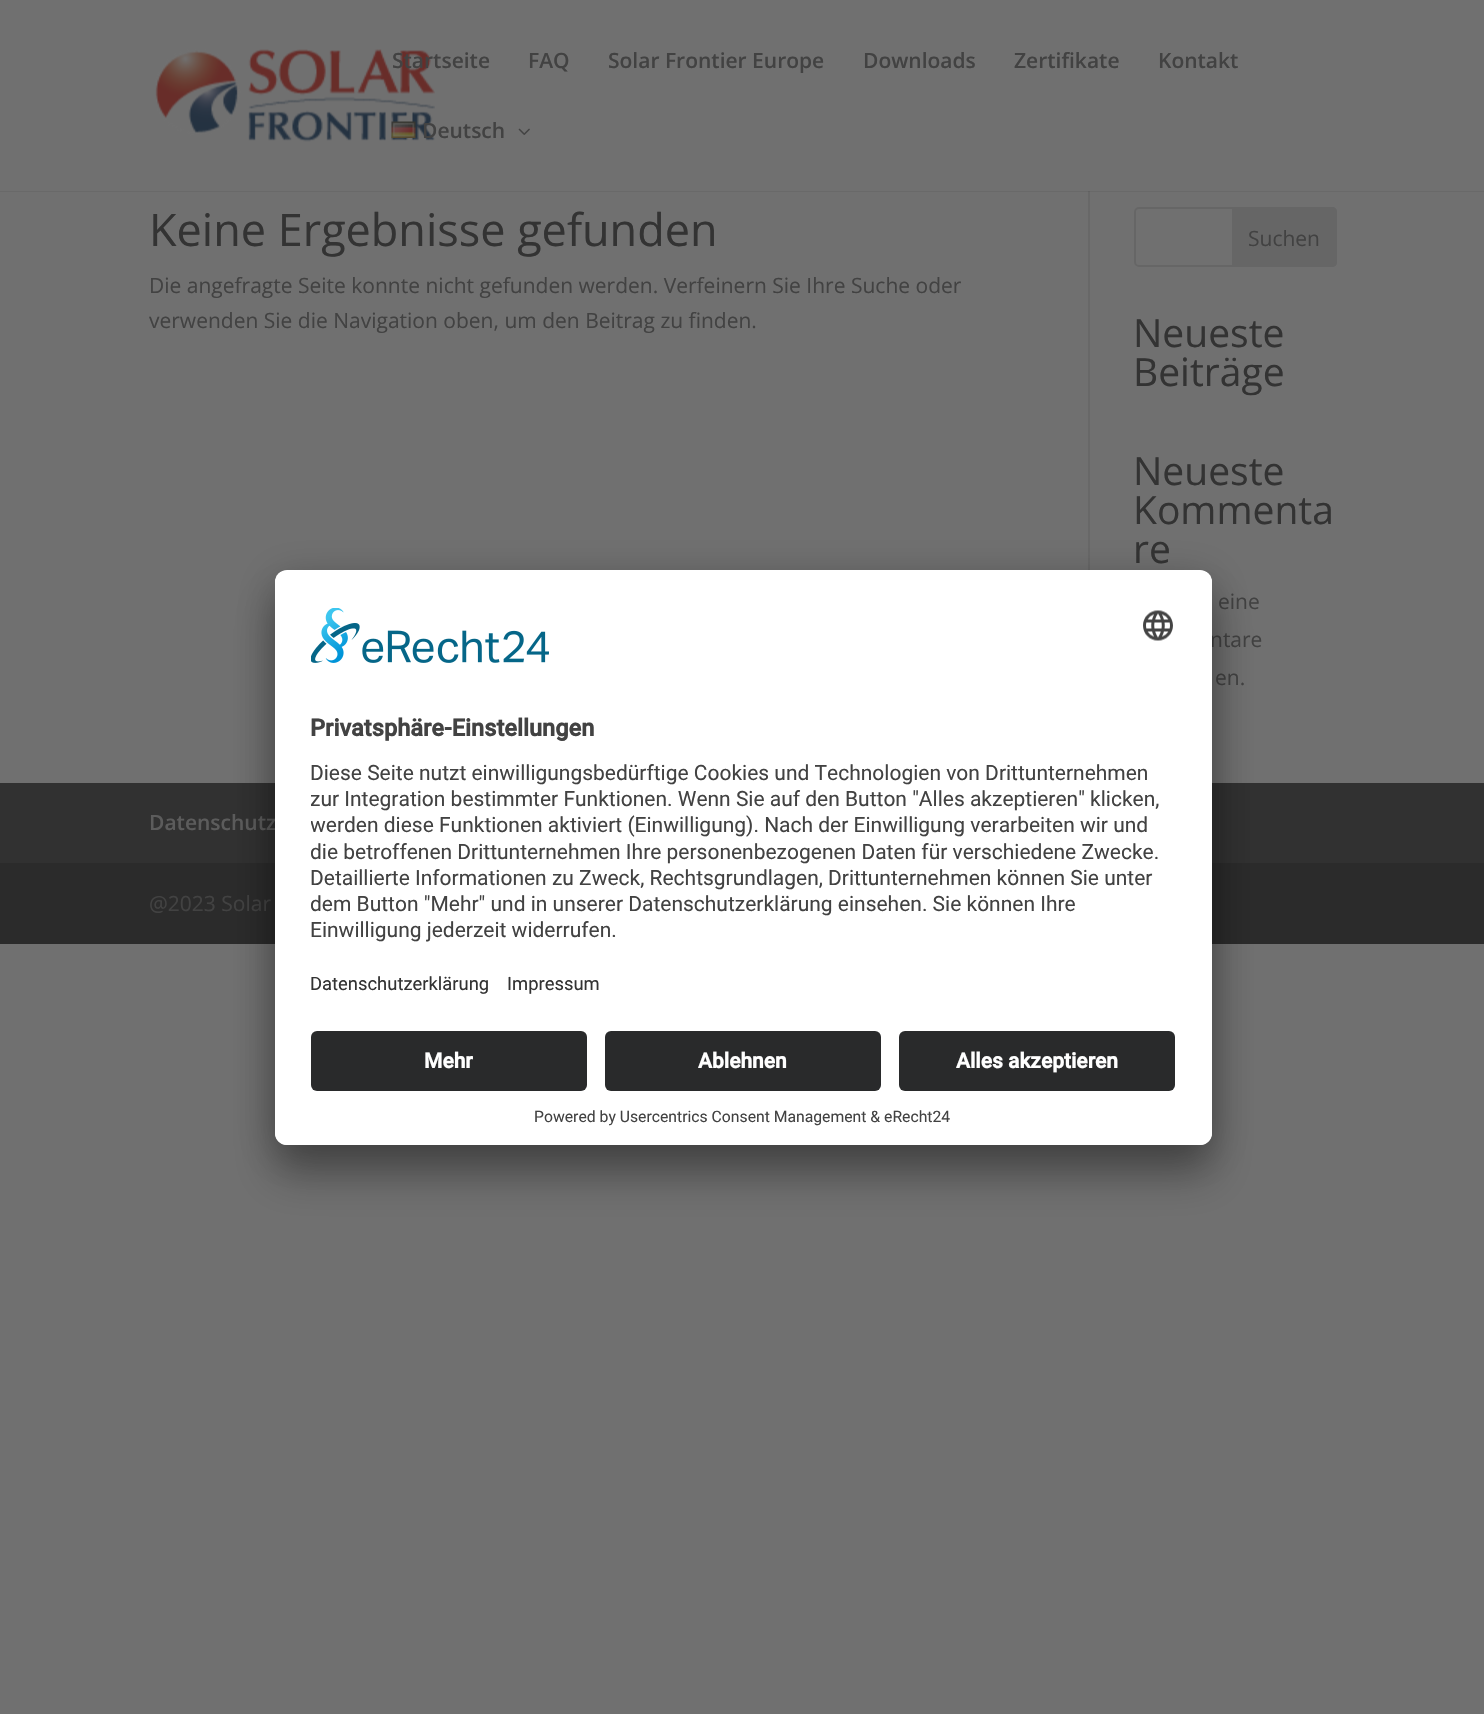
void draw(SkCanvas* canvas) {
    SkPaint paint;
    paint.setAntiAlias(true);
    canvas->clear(0xFF707070);
    paint.setColor(0xFF696969);
    canvas->drawRect(SkRect::MakeXYWH(0, 191, 1484, 1), paint);
    canvas->drawImageRect(SkImages::DeferredFromEncodedData(SkData::MakeFromFileName("img1.png")), SkRect::MakeXYWH(155, 49, 280, 93), SkSamplingOptions());
    SkFont font1(fontMgr->matchFamilyStyle("Open Sans", SkFontStyle(600, SkFontStyle::kNormal_Width, SkFontStyle::kUpright_Slant)), 21);
    font1.setSubpixel(true);
    paint.setColor(0xFF424242);
    canvas->drawString("Startseite", 392, 68, font1, paint);
    canvas->drawString("FAQ", 528, 68, font1, paint);
    canvas->drawString("Solar Frontier Europe", 608, 68, font1, paint);
    canvas->drawString("Downloads", 863, 68, font1, paint);
    canvas->drawString("Zertifikate", 1014, 68, font1, paint);
    canvas->drawString("Kontakt", 1158, 68, font1, paint);
    canvas->drawImageRect(SkImages::DeferredFromEncodedData(SkData::MakeFromFileName("img2.png")), SkRect::MakeXYWH(391, 121, 25, 17), SkSamplingOptions());
    canvas->drawString("Deutsch", 422, 138, font1, paint);
    canvas->drawImageRect(SkImages::DeferredFromEncodedData(SkData::MakeFromFileName("img3.png")), SkRect::MakeXYWH(518, 128, 12, 7), SkSamplingOptions());
    paint.setColor(0xFF686868);
    canvas->drawRect(SkRect::MakeXYWH(1088, 192, 2, 378), paint);
    paint.setColor(0xFF616161);
    canvas->drawRect(SkRect::MakeXYWH(1088, 191, 2, 1), paint);
    SkFont font2(fontMgr->matchFamilyStyle("Open Sans", SkFontStyle::Normal()), 45);
    font2.setSubpixel(true);
    paint.setColor(0xFF333333);
    canvas->drawString("Keine Ergebnisse gefunden", 149, 246, font2, paint);
    SkFont font3(fontMgr->matchFamilyStyle("Open Sans", SkFontStyle::Normal()), 21);
    font3.setSubpixel(true);
    paint.setColor(0xFF424242);
    canvas->drawString("Die angefragte Seite konnte nicht gefunden werden. Verfeinern Sie Ihre Suche oder", 149, 293, font3, paint);
    canvas->drawString("verwenden Sie die Navigation oben, um den Beitrag zu finden.", 149, 328, font3, paint);
    paint.setStyle(SkPaint::kStroke_Style);
    paint.setStrokeWidth(2);
    paint.setColor(0xFF666666);
    canvas->drawRoundRect(SkRect::MakeXYWH(1135, 208, 201, 58), 4, 4, paint);
    paint.setStyle(SkPaint::kFill_Style);
    canvas->drawPath(SkPathBuilder().moveTo(1232, 207).lineTo(1332, 207).cubicTo(1335, 207, 1337, 209, 1337, 212).lineTo(1337, 262).cubicTo(1337, 265, 1335, 267, 1332, 267).lineTo(1232, 267).close().detach(), paint);
    paint.setColor(0xFF424242);
    canvas->drawString("Suchen", 1248, 246, font3, paint);
    SkFont font4(fontMgr->matchFamilyStyle("Open Sans", SkFontStyle::Normal()), 39);
    font4.setSubpixel(true);
    paint.setColor(0xFF333333);
    canvas->drawString("Neueste", 1133, 347, font4, paint);
    canvas->drawString("Beiträge", 1133, 386, font4, paint);
    canvas->drawString("Neueste", 1133, 485, font4, paint);
    canvas->drawString("Kommenta", 1133, 524, font4, paint);
    canvas->drawString("re", 1133, 563, font4, paint);
    paint.setColor(0xFF424242);
    canvas->drawString("eine", 1218, 609, font3, paint);
    canvas->drawString("ntare", 1210, 647, font3, paint);
    canvas->drawString("en.", 1215, 685, font3, paint);
    paint.setColor(0xFF313131);
    canvas->drawRect(SkRect::MakeXYWH(0, 783, 1484, 80), paint);
    paint.setColor(0xFF5C5C5C);
    canvas->drawString("Datenschutz", 149, 830, font1, paint);
    paint.setColor(0xFF2B2B2B);
    canvas->drawRect(SkRect::MakeXYWH(0, 863, 1484, 81), paint);
    paint.setColor(0xFF424242);
    canvas->drawString("@2023 Solar", 149, 911, font3, paint);
    paint.setColor(0x4D000000);
    paint.setMaskFilter(SkMaskFilter::MakeBlur(kNormal_SkBlurStyle, 21));
    canvas->drawRoundRect(SkRect::MakeXYWH(275, 600, 937, 575), 12, 12, paint);
    paint.setMaskFilter(nullptr);
    paint.setColor(0x38000000);
    paint.setMaskFilter(SkMaskFilter::MakeBlur(kNormal_SkBlurStyle, 19.5f));
    canvas->drawRoundRect(SkRect::MakeXYWH(275, 578, 937, 574), 12, 12, paint);
    paint.setMaskFilter(nullptr);
    paint.setColor(0xFFFFFFFF);
    canvas->drawRoundRect(SkRect::MakeXYWH(275, 570, 937, 575), 12, 12, paint);
    canvas->save();
    canvas->clipPath(SkPathBuilder().moveTo(287, 570).lineTo(1200, 570).cubicTo(1206.5f, 570, 1212, 575.5f, 1212, 582).lineTo(1212, 1133).cubicTo(1212, 1139.5f, 1206.5f, 1145, 1200, 1145).lineTo(287, 1145).cubicTo(280.5f, 1145, 275, 1139.5f, 275, 1133).lineTo(275, 582).cubicTo(275, 575.5f, 280.5f, 570, 287, 570).close().detach(), true);
    canvas->clipPath(SkPathBuilder().moveTo(287, 570).lineTo(1200, 570).cubicTo(1206.5f, 570, 1212, 575.5f, 1212, 582).lineTo(1212, 1019).lineTo(275, 1019).lineTo(275, 582).cubicTo(275, 575.5f, 280.5f, 570, 287, 570).close().detach(), true);
    canvas->drawRect(SkRect::MakeXYWH(275, 572, 937, 447), paint);
    canvas->restore();
    canvas->drawImageRect(SkImages::DeferredFromEncodedData(SkData::MakeFromFileName("img4.png")), SkRect::MakeXYWH(311, 608, 238, 55), SkSamplingOptions());
    canvas->drawImageRect(SkImages::DeferredFromEncodedData(SkData::MakeFromFileName("img5.png")), SkRect::MakeXYWH(1143, 610, 30, 31), SkSamplingOptions());
    SkFont font5(fontMgr->matchFamilyStyle("Roboto", SkFontStyle::Bold()), 23.6f);
    font5.setSubpixel(true);
    paint.setColor(0xFF424242);
    canvas->drawString("Privatsphäre-Einstellungen", 310, 736, font5, paint);
    SkFont font6(fontMgr->matchFamilyStyle("Roboto", SkFontStyle::Normal()), 21);
    font6.setSubpixel(true);
    canvas->drawString("Diese Seite nutzt einwilligungsbedürftige Cookies und Technologien von Drittunternehmen", 310, 780, font6, paint);
    canvas->save();
    canvas->clipRect(SkRect::MakeXYWH(311, 755, 865, 195));
    canvas->drawString("zur Integration bestimmter Funktionen. Wenn Sie auf den Button \"Alles akzeptieren\" klicken,", 310, 806, font6, paint);
    canvas->drawString("werden diese Funktionen aktiviert (Einwilligung). Nach der Einwilligung verarbeiten wir und", 310, 832, font6, paint);
    canvas->drawString("die betroffenen Drittunternehmen Ihre personenbezogenen Daten für verschiedene Zwecke.", 310, 859, font6, paint);
    canvas->restore();
    canvas->drawString("Detaillierte Informationen zu Zweck, Rechtsgrundlagen, Drittunternehmen können Sie unter", 310, 885, font6, paint);
    canvas->save();
    canvas->clipRect(SkRect::MakeXYWH(311, 755, 865, 195));
    canvas->drawString("dem Button \"Mehr\" und in unserer Datenschutzerklärung einsehen. Sie können Ihre", 310, 911, font6, paint);
    canvas->restore();
    canvas->drawString("Einwilligung jederzeit widerrufen.", 310, 937, font6, paint);
    SkFont font7(fontMgr->matchFamilyStyle("Roboto", SkFontStyle::Normal()), 18.4f);
    font7.setSubpixel(true);
    paint.setColor(0xFF333333);
    canvas->drawString("Datenschutzerklärung", 310, 990, font7, paint);
    canvas->drawString("Impressum", 507, 990, font7, paint);
    paint.setColor(0xFFFFFFFF);
    canvas->drawPath(SkPathBuilder().moveTo(275, 1019).lineTo(1212, 1019).lineTo(1212, 1133).cubicTo(1212, 1139.5f, 1206.5f, 1145, 1200, 1145).lineTo(287, 1145).cubicTo(280.5f, 1145, 275, 1139.5f, 275, 1133).close().detach(), paint);
    paint.setColor(0xFF292A2B);
    canvas->drawRoundRect(SkRect::MakeXYWH(311, 1031, 276, 60), 6, 6, paint);
    SkFont font8(fontMgr->matchFamilyStyle("Roboto", SkFontStyle::Bold()), 21);
    font8.setSubpixel(true);
    paint.setColor(0xFFFFFFFF);
    canvas->drawString("Mehr", 424, 1068, font8, paint);
    paint.setColor(0xFF292A2B);
    canvas->drawRoundRect(SkRect::MakeXYWH(605, 1031, 276, 60), 6, 6, paint);
    paint.setColor(0xFFFFFFFF);
    canvas->drawString("Ablehnen", 698, 1068, font8, paint);
    paint.setColor(0xFF292A2B);
    canvas->drawRoundRect(SkRect::MakeXYWH(899, 1031, 276, 60), 6, 6, paint);
    paint.setColor(0xFFFFFFFF);
    canvas->drawString("Alles akzeptieren", 956, 1068, font8, paint);
    SkFont font9(fontMgr->matchFamilyStyle("Roboto", SkFontStyle::Normal()), 15.75f);
    font9.setSubpixel(true);
    paint.setColor(0xFF424242);
    canvas->drawString("Powered by Usercentrics Consent Management & eRecht24", 534, 1122, font9, paint);
}
